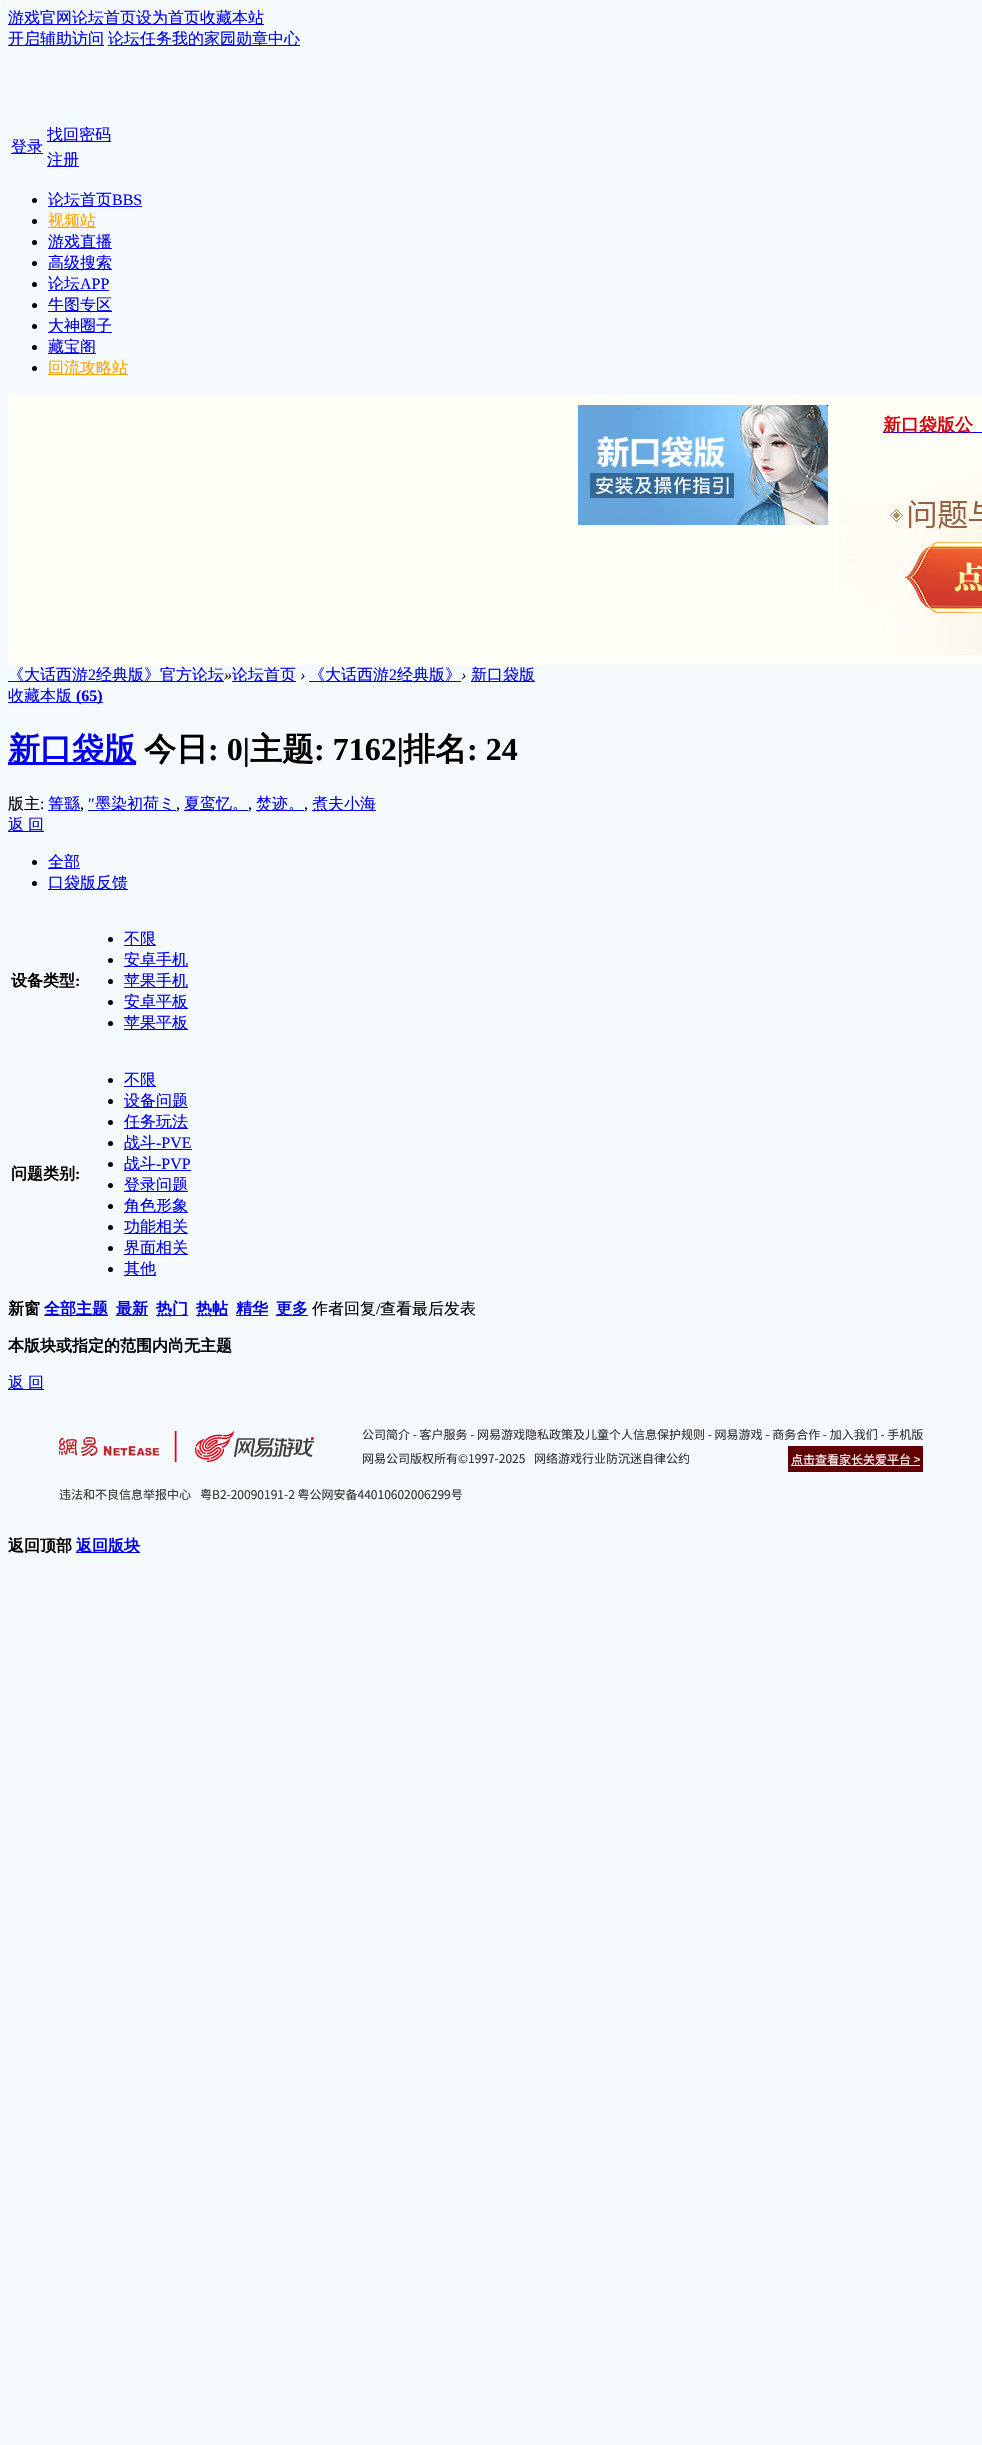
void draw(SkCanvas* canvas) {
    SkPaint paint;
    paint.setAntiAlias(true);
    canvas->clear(0xFFF5FAFF);
    paint.setColor(0xFF0000EE);
    canvas->drawRect(SkRect::MakeXYWH(8, 24, 256, 1), paint);
    SkFont font1(fontMgr->matchFamilyStyle("WenQuanYi Zen Hei", SkFontStyle(500, SkFontStyle::kNormal_Width, SkFontStyle::kUpright_Slant)), 16);
    font1.setSubpixel(true);
    canvas->drawString("游戏官网论坛首页设为首页收藏本站", 8, 23, font1, paint);
    canvas->drawRect(SkRect::MakeXYWH(8, 45, 96, 1), paint);
    canvas->drawString("开启辅助访问", 8, 44, font1, paint);
    canvas->drawRect(SkRect::MakeXYWH(108, 45, 192, 1), paint);
    canvas->drawString("论坛任务我的家园勋章中心", 108, 44, font1, paint);
    canvas->drawRect(SkRect::MakeXYWH(47, 141, 64, 1), paint);
    canvas->drawString("找回密码", 47, 140, font1, paint);
    canvas->drawRect(SkRect::MakeXYWH(11, 153, 32, 1), paint);
    canvas->drawString("登录", 11, 152, font1, paint);
    canvas->drawRect(SkRect::MakeXYWH(47, 166, 32, 1), paint);
    canvas->drawString("注册", 47, 165, font1, paint);
    paint.setColor(0xFF000000);
    canvas->drawCircle(34.5f, 200.5f, 2.5f, paint);
    paint.setColor(0xFF0000EE);
    canvas->drawRect(SkRect::MakeXYWH(48, 206, 94, 1), paint);
    canvas->drawString("论坛首页", 48, 205, font1, paint);
    SkFont font2(fontMgr->matchFamilyStyle("Liberation Serif", SkFontStyle::Normal()), 16);
    font2.setSubpixel(true);
    canvas->drawString("BBS", 112, 205, font2, paint);
    paint.setColor(0xFF000000);
    canvas->drawCircle(34.5f, 221.5f, 2.5f, paint);
    paint.setColor(0xFFFFA500);
    canvas->drawRect(SkRect::MakeXYWH(48, 227, 48, 1), paint);
    canvas->drawString("视频站", 48, 226, font1, paint);
    paint.setColor(0xFF000000);
    canvas->drawCircle(34.5f, 242.5f, 2.5f, paint);
    paint.setColor(0xFF0000EE);
    canvas->drawRect(SkRect::MakeXYWH(48, 248, 64, 1), paint);
    canvas->drawString("游戏直播", 48, 247, font1, paint);
    paint.setColor(0xFF000000);
    canvas->drawCircle(34.5f, 263.5f, 2.5f, paint);
    paint.setColor(0xFF0000EE);
    canvas->drawRect(SkRect::MakeXYWH(48, 269, 64, 1), paint);
    canvas->drawString("高级搜索", 48, 268, font1, paint);
    paint.setColor(0xFF000000);
    canvas->drawCircle(34.5f, 284.5f, 2.5f, paint);
    paint.setColor(0xFF0000EE);
    canvas->drawRect(SkRect::MakeXYWH(48, 290, 61, 1), paint);
    canvas->drawString("论坛", 48, 289, font1, paint);
    canvas->drawString("APP", 80, 289, font2, paint);
    paint.setColor(0xFF000000);
    canvas->drawCircle(34.5f, 305.5f, 2.5f, paint);
    paint.setColor(0xFF0000EE);
    canvas->drawRect(SkRect::MakeXYWH(48, 311, 64, 1), paint);
    canvas->drawString("牛图专区", 48, 310, font1, paint);
    paint.setColor(0xFF000000);
    canvas->drawCircle(34.5f, 326.5f, 2.5f, paint);
    paint.setColor(0xFF0000EE);
    canvas->drawRect(SkRect::MakeXYWH(48, 332, 64, 1), paint);
    canvas->drawString("大神圈子", 48, 331, font1, paint);
    paint.setColor(0xFF000000);
    canvas->drawCircle(34.5f, 347.5f, 2.5f, paint);
    paint.setColor(0xFF0000EE);
    canvas->drawRect(SkRect::MakeXYWH(48, 353, 48, 1), paint);
    canvas->drawString("藏宝阁", 48, 352, font1, paint);
    paint.setColor(0xFF000000);
    canvas->drawCircle(34.5f, 368.5f, 2.5f, paint);
    paint.setColor(0xFFFFA500);
    canvas->drawRect(SkRect::MakeXYWH(48, 374, 80, 1), paint);
    canvas->drawString("回流攻略站", 48, 373, font1, paint);
    paint.setColor(0xFFFFFFF8);
    canvas->drawRect(SkRect::MakeXYWH(8, 395, 974, 270), paint);
    canvas->drawImageRect(SkImages::DeferredFromEncodedData(SkData::MakeFromFileName("img1.png")), SkRect::MakeXYWH(578, 405, 250, 120), SkSamplingOptions());
    paint.setColor(0xFF0000EE);
    canvas->drawRect(SkRect::MakeXYWH(883, 432, 99, 1), paint);
    SkFont font3(fontMgr->matchFamilyStyle("WenQuanYi Zen Hei", SkFontStyle::Bold()), 18);
    font3.setSubpixel(true);
    paint.setColor(0xFFD40710);
    canvas->drawString("新口袋版公", 883, 431, font3, paint);
    canvas->drawImageRect(SkImages::DeferredFromEncodedData(SkData::MakeFromFileName("img2.png")), SkRect::MakeXYWH(838, 455, 144, 200), SkSamplingOptions());
    paint.setColor(0xFF0000EE);
    canvas->drawRect(SkRect::MakeXYWH(8, 681, 216, 1), paint);
    canvas->drawString("《大话西游", 8, 680, font1, paint);
    canvas->drawString("2", 88, 680, font2, paint);
    canvas->drawString("经典版》官方论坛", 96, 680, font1, paint);
    SkFont font4(fontMgr->matchFamilyStyle("Liberation Serif", SkFontStyle::Italic()), 16);
    font4.setSubpixel(true);
    paint.setColor(0xFF000000);
    canvas->drawString("»", 224, 680, font4, paint);
    paint.setColor(0xFF0000EE);
    canvas->drawRect(SkRect::MakeXYWH(232, 681, 64, 1), paint);
    canvas->drawString("论坛首页", 232, 680, font1, paint);
    paint.setColor(0xFF000000);
    canvas->drawString("›", 300, 680, font4, paint);
    paint.setColor(0xFF0000EE);
    canvas->drawRect(SkRect::MakeXYWH(309, 681, 152, 1), paint);
    canvas->drawString("《大话西游", 309, 680, font1, paint);
    canvas->drawString("2", 389, 680, font2, paint);
    canvas->drawString("经典版》", 397, 680, font1, paint);
    paint.setColor(0xFF000000);
    canvas->drawString("›", 461, 680, font4, paint);
    paint.setColor(0xFF0000EE);
    canvas->drawRect(SkRect::MakeXYWH(471, 681, 64, 1), paint);
    canvas->drawString("新口袋版", 471, 680, font1, paint);
    canvas->drawRect(SkRect::MakeXYWH(8, 702, 95, 1), paint);
    canvas->drawString("收藏本版", 8, 701, font1, paint);
    SkFont font5(fontMgr->matchFamilyStyle("Liberation Serif", SkFontStyle::Bold()), 16);
    font5.setSubpixel(true);
    canvas->drawString("(65)", 76, 701, font5, paint);
    canvas->drawRect(SkRect::MakeXYWH(8, 762, 128, 3), paint);
    SkFont font6(fontMgr->matchFamilyStyle("WenQuanYi Zen Hei", SkFontStyle::Bold()), 32);
    font6.setSubpixel(true);
    canvas->drawString("新口袋版", 8, 760, font6, paint);
    paint.setColor(0xFF000000);
    canvas->drawString("今日", 144, 760, font6, paint);
    SkFont font7(fontMgr->matchFamilyStyle("Liberation Serif", SkFontStyle::Bold()), 32);
    font7.setSubpixel(true);
    canvas->drawString(": 0|", 208, 760, font7, paint);
    canvas->drawString("主题", 250, 760, font6, paint);
    canvas->drawString(": 7162|", 314, 760, font7, paint);
    canvas->drawString("排名", 403, 760, font6, paint);
    canvas->drawString(": 24", 467, 760, font7, paint);
    canvas->drawString("版主", 8, 809, font1, paint);
    paint.setColor(0xFF0000EE);
    canvas->drawRect(SkRect::MakeXYWH(48, 810, 32, 1), paint);
    canvas->drawString("箐繇", 48, 809, font1, paint);
    canvas->drawString("″", 88, 809, font2, paint);
    canvas->drawRect(SkRect::MakeXYWH(88, 810, 88, 1), paint);
    canvas->drawString("墨染初荷ミ", 95, 809, font1, paint);
    canvas->drawRect(SkRect::MakeXYWH(184, 810, 64, 1), paint);
    canvas->drawString("夏鸾忆。", 184, 809, font1, paint);
    canvas->drawRect(SkRect::MakeXYWH(256, 810, 48, 1), paint);
    canvas->drawString("焚迹。", 256, 809, font1, paint);
    canvas->drawRect(SkRect::MakeXYWH(312, 810, 64, 1), paint);
    canvas->drawString("煮夫小海", 312, 809, font1, paint);
    paint.setColor(0xFF000000);
    canvas->drawString(":", 40, 809, font2, paint);
    canvas->drawString(",", 80, 809, font2, paint);
    canvas->drawString(",", 176, 809, font2, paint);
    canvas->drawString(",", 248, 809, font2, paint);
    canvas->drawString(",", 304, 809, font2, paint);
    paint.setColor(0xFF0000EE);
    canvas->drawRect(SkRect::MakeXYWH(8, 831, 36, 1), paint);
    canvas->drawString("返", 8, 830, font1, paint);
    canvas->drawString("回", 28, 830, font1, paint);
    paint.setColor(0xFF000000);
    canvas->drawCircle(34.5f, 862.5f, 2.5f, paint);
    paint.setColor(0xFF0000EE);
    canvas->drawRect(SkRect::MakeXYWH(48, 868, 32, 1), paint);
    canvas->drawString("全部", 48, 867, font1, paint);
    paint.setColor(0xFF000000);
    canvas->drawCircle(34.5f, 883.5f, 2.5f, paint);
    paint.setColor(0xFF0000EE);
    canvas->drawRect(SkRect::MakeXYWH(48, 889, 80, 1), paint);
    canvas->drawString("口袋版反馈", 48, 888, font1, paint);
    SkFont font8(fontMgr->matchFamilyStyle("WenQuanYi Zen Hei", SkFontStyle::Bold()), 16);
    font8.setSubpixel(true);
    paint.setColor(0xFF000000);
    canvas->drawString("设备类型", 11, 986, font8, paint);
    canvas->drawString(":", 75, 986, font5, paint);
    canvas->drawCircle(110.5f, 939.5f, 2.5f, paint);
    paint.setColor(0xFF0000EE);
    canvas->drawRect(SkRect::MakeXYWH(124, 945, 32, 1), paint);
    canvas->drawString("不限", 124, 944, font1, paint);
    paint.setColor(0xFF000000);
    canvas->drawCircle(110.5f, 960.5f, 2.5f, paint);
    paint.setColor(0xFF0000EE);
    canvas->drawRect(SkRect::MakeXYWH(124, 966, 64, 1), paint);
    canvas->drawString("安卓手机", 124, 965, font1, paint);
    paint.setColor(0xFF000000);
    canvas->drawCircle(110.5f, 981.5f, 2.5f, paint);
    paint.setColor(0xFF0000EE);
    canvas->drawRect(SkRect::MakeXYWH(124, 987, 64, 1), paint);
    canvas->drawString("苹果手机", 124, 986, font1, paint);
    paint.setColor(0xFF000000);
    canvas->drawCircle(110.5f, 1002.5f, 2.5f, paint);
    paint.setColor(0xFF0000EE);
    canvas->drawRect(SkRect::MakeXYWH(124, 1008, 64, 1), paint);
    canvas->drawString("安卓平板", 124, 1007, font1, paint);
    paint.setColor(0xFF000000);
    canvas->drawCircle(110.5f, 1023.5f, 2.5f, paint);
    paint.setColor(0xFF0000EE);
    canvas->drawRect(SkRect::MakeXYWH(124, 1029, 64, 1), paint);
    canvas->drawString("苹果平板", 124, 1028, font1, paint);
    paint.setColor(0xFF000000);
    canvas->drawString("问题类别", 11, 1179, font8, paint);
    canvas->drawString(":", 75, 1179, font5, paint);
    canvas->drawCircle(110.5f, 1080.5f, 2.5f, paint);
    paint.setColor(0xFF0000EE);
    canvas->drawRect(SkRect::MakeXYWH(124, 1086, 32, 1), paint);
    canvas->drawString("不限", 124, 1085, font1, paint);
    paint.setColor(0xFF000000);
    canvas->drawCircle(110.5f, 1101.5f, 2.5f, paint);
    paint.setColor(0xFF0000EE);
    canvas->drawRect(SkRect::MakeXYWH(124, 1107, 64, 1), paint);
    canvas->drawString("设备问题", 124, 1106, font1, paint);
    paint.setColor(0xFF000000);
    canvas->drawCircle(110.5f, 1122.5f, 2.5f, paint);
    paint.setColor(0xFF0000EE);
    canvas->drawRect(SkRect::MakeXYWH(124, 1128, 64, 1), paint);
    canvas->drawString("任务玩法", 124, 1127, font1, paint);
    paint.setColor(0xFF000000);
    canvas->drawCircle(110.5f, 1143.5f, 2.5f, paint);
    paint.setColor(0xFF0000EE);
    canvas->drawRect(SkRect::MakeXYWH(124, 1149, 68, 1), paint);
    canvas->drawString("战斗", 124, 1148, font1, paint);
    canvas->drawString("-PVE", 156, 1148, font2, paint);
    paint.setColor(0xFF000000);
    canvas->drawCircle(110.5f, 1164.5f, 2.5f, paint);
    paint.setColor(0xFF0000EE);
    canvas->drawRect(SkRect::MakeXYWH(124, 1170, 67, 1), paint);
    canvas->drawString("战斗", 124, 1169, font1, paint);
    canvas->drawString("-PVP", 156, 1169, font2, paint);
    paint.setColor(0xFF000000);
    canvas->drawCircle(110.5f, 1185.5f, 2.5f, paint);
    paint.setColor(0xFF0000EE);
    canvas->drawRect(SkRect::MakeXYWH(124, 1191, 64, 1), paint);
    canvas->drawString("登录问题", 124, 1190, font1, paint);
    paint.setColor(0xFF000000);
    canvas->drawCircle(110.5f, 1206.5f, 2.5f, paint);
    paint.setColor(0xFF0000EE);
    canvas->drawRect(SkRect::MakeXYWH(124, 1212, 64, 1), paint);
    canvas->drawString("角色形象", 124, 1211, font1, paint);
    paint.setColor(0xFF000000);
    canvas->drawCircle(110.5f, 1227.5f, 2.5f, paint);
    paint.setColor(0xFF0000EE);
    canvas->drawRect(SkRect::MakeXYWH(124, 1233, 64, 1), paint);
    canvas->drawString("功能相关", 124, 1232, font1, paint);
    paint.setColor(0xFF000000);
    canvas->drawCircle(110.5f, 1248.5f, 2.5f, paint);
    paint.setColor(0xFF0000EE);
    canvas->drawRect(SkRect::MakeXYWH(124, 1254, 64, 1), paint);
    canvas->drawString("界面相关", 124, 1253, font1, paint);
    paint.setColor(0xFF000000);
    canvas->drawCircle(110.5f, 1269.5f, 2.5f, paint);
    paint.setColor(0xFF0000EE);
    canvas->drawRect(SkRect::MakeXYWH(124, 1275, 32, 1), paint);
    canvas->drawString("其他", 124, 1274, font1, paint);
    paint.setColor(0xFF000000);
    canvas->drawString("新窗", 8, 1314, font8, paint);
    paint.setColor(0xFF0000EE);
    canvas->drawRect(SkRect::MakeXYWH(44, 1315, 64, 1), paint);
    canvas->drawString("全部主题", 44, 1314, font8, paint);
    canvas->drawRect(SkRect::MakeXYWH(116, 1315, 32, 1), paint);
    canvas->drawString("最新", 116, 1314, font8, paint);
    canvas->drawRect(SkRect::MakeXYWH(156, 1315, 32, 1), paint);
    canvas->drawString("热门", 156, 1314, font8, paint);
    canvas->drawRect(SkRect::MakeXYWH(196, 1315, 32, 1), paint);
    canvas->drawString("热帖", 196, 1314, font8, paint);
    canvas->drawRect(SkRect::MakeXYWH(236, 1315, 32, 1), paint);
    canvas->drawString("精华", 236, 1314, font8, paint);
    canvas->drawRect(SkRect::MakeXYWH(276, 1315, 32, 1), paint);
    canvas->drawString("更多", 276, 1314, font8, paint);
    paint.setColor(0xFF000000);
    canvas->drawString("作者回复", 312, 1314, font1, paint);
    canvas->drawString("/", 376, 1314, font2, paint);
    canvas->drawString("查看最后发表", 380, 1314, font1, paint);
    canvas->drawString("本版块或指定的范围内尚无主题", 8, 1351, font8, paint);
    paint.setColor(0xFF0000EE);
    canvas->drawRect(SkRect::MakeXYWH(8, 1389, 36, 1), paint);
    canvas->drawString("返", 8, 1388, font1, paint);
    canvas->drawString("回", 28, 1388, font1, paint);
    canvas->drawImageRect(SkImages::DeferredFromEncodedData(SkData::MakeFromFileName("img3.png")), SkRect::MakeXYWH(59, 1431, 118, 31), SkSamplingOptions());
    canvas->drawImageRect(SkImages::DeferredFromEncodedData(SkData::MakeFromFileName("img4.png")), SkRect::MakeXYWH(195, 1431, 119, 31), SkSamplingOptions());
    SkFont font9(fontMgr->matchFamilyStyle("Noto Sans CJK SC", SkFontStyle::Normal()), 12);
    font9.setSubpixel(true);
    paint.setColor(0xFF333333);
    canvas->drawString("公司简介 - 客户服务 - 网易游戏隐私政策及儿童个人信息保护规则 - 网易游戏 - 商务合作 - 加入我们 - 手机版", 362, 1439, font9, paint);
    canvas->drawString("网易公司版权所有©1997-2025", 362, 1463, font9, paint);
    canvas->drawString("网络游戏行业防沉迷自律公约", 534, 1463, font9, paint);
    paint.setColor(0xFF610000);
    canvas->drawRect(SkRect::MakeXYWH(788, 1446, 135, 26), paint);
    paint.setColor(0xFFFFFFFF);
    canvas->drawString("点击查看家长关爱平台 >", 791, 1464, font9, paint);
    canvas->drawRect(SkRect::MakeXYWH(791, 1465, 129, 1), paint);
    paint.setColor(0xFF333333);
    canvas->drawString("违法和不良信息举报中心", 59, 1499, font9, paint);
    canvas->drawString("粤B2-20090191-2 粤公网安备44010602006299号", 200, 1499, font9, paint);
    paint.setColor(0xFF000000);
    canvas->drawString("返回顶部", 8, 1551, font8, paint);
    paint.setColor(0xFF0000EE);
    canvas->drawRect(SkRect::MakeXYWH(76, 1552, 64, 1), paint);
    canvas->drawString("返回版块", 76, 1551, font8, paint);
}
